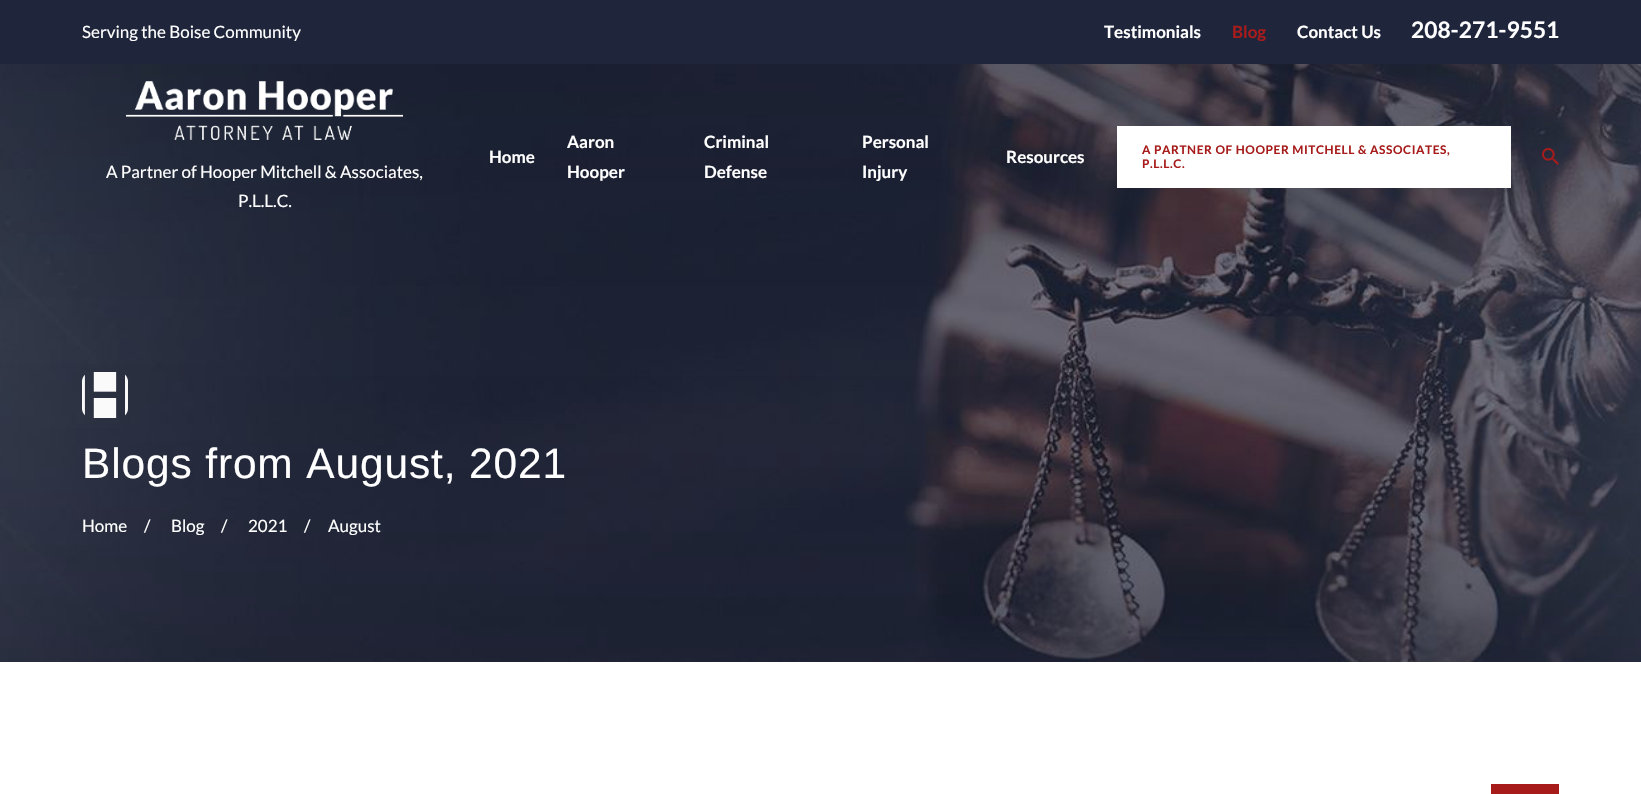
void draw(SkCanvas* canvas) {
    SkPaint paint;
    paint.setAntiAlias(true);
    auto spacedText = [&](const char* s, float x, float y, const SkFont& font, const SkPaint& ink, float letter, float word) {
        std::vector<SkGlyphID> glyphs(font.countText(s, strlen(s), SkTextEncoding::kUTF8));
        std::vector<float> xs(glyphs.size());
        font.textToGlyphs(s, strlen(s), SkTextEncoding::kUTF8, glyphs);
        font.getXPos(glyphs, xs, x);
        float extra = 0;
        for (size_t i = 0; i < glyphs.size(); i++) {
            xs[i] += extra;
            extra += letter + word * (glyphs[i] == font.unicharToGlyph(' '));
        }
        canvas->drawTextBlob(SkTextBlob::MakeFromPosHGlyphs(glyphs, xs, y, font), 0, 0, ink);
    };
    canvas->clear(0xFFFFFFFF);
    paint.setColor(0xFF1F263C);
    canvas->drawRect(SkRect::MakeXYWH(0, 0, 1641, 64), paint);
    SkFont font1(fontMgr->matchFamilyStyle("Lato", SkFontStyle::Normal()), 17);
    font1.setSubpixel(true);
    paint.setColor(0xFFFFFFFF);
    canvas->drawString("Serving the Boise Community", 82, 38, font1, paint);
    SkFont font2(fontMgr->matchFamilyStyle("Lato", SkFontStyle::Bold()), 17);
    font2.setSubpixel(true);
    canvas->drawString("Testimonials", 1104, 38, font2, paint);
    paint.setColor(0xFFA71B1B);
    canvas->drawString("Blog", 1232, 38, font2, paint);
    paint.setColor(0xFFFFFFFF);
    canvas->drawString("Contact Us", 1297, 38, font2, paint);
    SkFont font3(fontMgr->matchFamilyStyle("Lato", SkFontStyle::Bold()), 22.75f);
    font3.setSubpixel(true);
    canvas->drawString("208-271-9551", 1411, 38, font3, paint);
    canvas->drawImageRect(SkImages::DeferredFromEncodedData(SkData::MakeFromFileName("img3.png")), SkRect::MakeXYWH(0, 64, 1641, 598), SkSamplingOptions());
    canvas->drawString("Home", 489, 163, font2, paint);
    canvas->drawString("Aaron", 567, 148, font2, paint);
    canvas->drawString("Hooper", 567, 178, font2, paint);
    canvas->drawString("Criminal", 704, 148, font2, paint);
    canvas->drawString("Defense", 704, 178, font2, paint);
    canvas->drawString("Personal", 862, 148, font2, paint);
    canvas->drawString("Injury", 862, 178, font2, paint);
    canvas->drawString("Resources", 1006, 163, font2, paint);
    canvas->drawRect(SkRect::MakeXYWH(1117, 126, 394, 62), paint);
    SkFont font4(fontMgr->matchFamilyStyle("Lato", SkFontStyle::Bold()), 11.9f);
    font4.setSubpixel(true);
    paint.setColor(0xFFA71B1B);
    spacedText("A PARTNER OF HOOPER MITCHELL & ASSOCIATES,", 1142, 154, font4, paint, 0.6f, 0);
    spacedText("P.L.L.C.", 1142, 168, font4, paint, 0.6f, 0);
    canvas->drawImageRect(SkImages::DeferredFromEncodedData(SkData::MakeFromFileName("img1.png")), SkRect::MakeXYWH(1542, 148, 17, 17), SkSamplingOptions());
    canvas->drawImageRect(SkImages::DeferredFromEncodedData(SkData::MakeFromFileName("img2.png")), SkRect::MakeXYWH(126, 81, 277, 59), SkSamplingOptions());
    paint.setColor(0xFFFFFFFF);
    canvas->drawString("A Partner of Hooper Mitchell & Associates,", 106, 178, font1, paint);
    canvas->drawString("P.L.L.C.", 238, 207, font1, paint);
    canvas->drawImageRect(SkImages::DeferredFromEncodedData(SkData::MakeFromFileName("img4.png")), SkRect::MakeXYWH(82, 372, 46, 46), SkSamplingOptions());
    SkFont font5(fontMgr->matchFamilyStyle("Liberation Sans", SkFontStyle::Normal()), 42.5f);
    font5.setSubpixel(true);
    spacedText("Blogs from August, 2021", 82, 478, font5, paint, 0.85f, 0);
    canvas->drawString("Home", 82, 532, font1, paint);
    canvas->drawString("/", 144, 532, font1, paint);
    canvas->drawString("Blog", 171, 532, font1, paint);
    canvas->drawString("/", 221, 532, font1, paint);
    canvas->drawString("2021", 248, 532, font1, paint);
    canvas->drawString("/", 304, 532, font1, paint);
    canvas->drawString("August", 328, 532, font1, paint);
    paint.setColor(0xFFA71B1B);
    canvas->drawRect(SkRect::MakeXYWH(1491, 784, 68, 10), paint);
}
